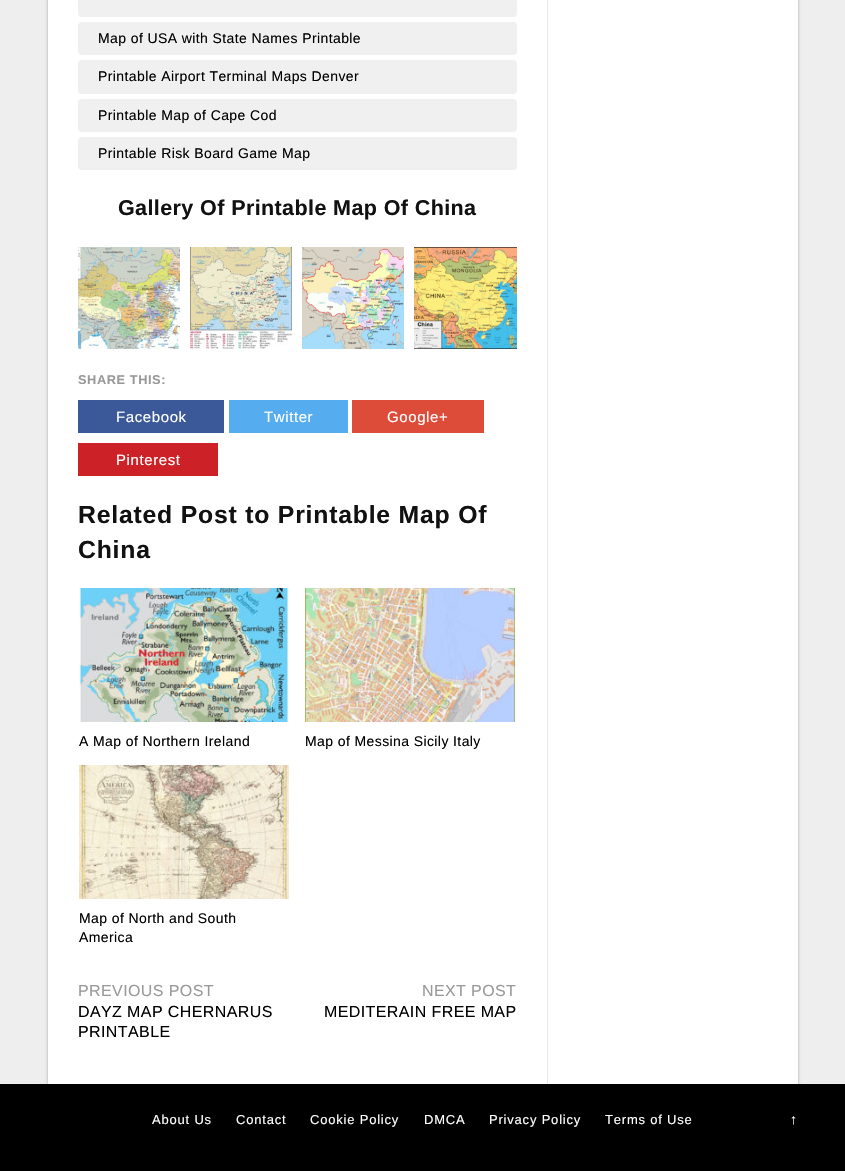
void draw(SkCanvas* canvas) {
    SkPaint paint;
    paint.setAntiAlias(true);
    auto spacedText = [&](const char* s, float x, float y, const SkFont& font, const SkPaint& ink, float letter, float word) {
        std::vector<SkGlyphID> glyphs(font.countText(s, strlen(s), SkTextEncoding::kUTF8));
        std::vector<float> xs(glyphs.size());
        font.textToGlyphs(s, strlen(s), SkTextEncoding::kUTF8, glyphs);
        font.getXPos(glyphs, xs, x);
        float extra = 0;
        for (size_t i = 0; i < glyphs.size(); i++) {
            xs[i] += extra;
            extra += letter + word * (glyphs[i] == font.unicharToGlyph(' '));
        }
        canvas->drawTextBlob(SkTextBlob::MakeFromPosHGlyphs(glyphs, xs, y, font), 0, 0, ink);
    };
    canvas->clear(0xFFEEEEEE);
    paint.setColor(0xFF000000);
    canvas->drawRect(SkRect::MakeXYWH(0, 1084, 845, 87), paint);
    paint.setColor(0x4D000000);
    paint.setMaskFilter(SkMaskFilter::MakeBlur(kNormal_SkBlurStyle, 1.5f));
    canvas->drawRect(SkRect::MakeXYWH(48, -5, 750, 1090), paint);
    paint.setMaskFilter(nullptr);
    paint.setColor(0xFFFFFFFF);
    canvas->drawRect(SkRect::MakeXYWH(48, 0, 750, 1084), paint);
    paint.setColor(0xFFE8E8E8);
    canvas->drawRect(SkRect::MakeXYWH(547, 0, 1, 1084), paint);
    paint.setColor(0xFFF0F0F0);
    canvas->drawRoundRect(SkRect::MakeXYWH(78, -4, 439, 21), 4, 4, paint);
    canvas->drawRoundRect(SkRect::MakeXYWH(78, 22, 439, 33), 4, 4, paint);
    SkFont font1(fontMgr->matchFamilyStyle("Liberation Sans", SkFontStyle::Normal()), 14);
    font1.setSubpixel(true);
    paint.setColor(0xFF000000);
    spacedText("Map of USA with State Names Printable", 98, 43, font1, paint, 0.4f, 0);
    paint.setColor(0xFFF0F0F0);
    canvas->drawRoundRect(SkRect::MakeXYWH(78, 60, 439, 34), 4, 4, paint);
    paint.setColor(0xFF000000);
    spacedText("Printable Airport Terminal Maps Denver", 98, 81, font1, paint, 0.4f, 0);
    paint.setColor(0xFFF0F0F0);
    canvas->drawRoundRect(SkRect::MakeXYWH(78, 99, 439, 33), 4, 4, paint);
    paint.setColor(0xFF000000);
    spacedText("Printable Map of Cape Cod", 98, 120, font1, paint, 0.4f, 0);
    paint.setColor(0xFFF0F0F0);
    canvas->drawRoundRect(SkRect::MakeXYWH(78, 137, 439, 33), 4, 4, paint);
    paint.setColor(0xFF000000);
    spacedText("Printable Risk Board Game Map", 98, 158, font1, paint, 0.4f, 0);
    SkFont font2(fontMgr->matchFamilyStyle("Liberation Sans", SkFontStyle::Bold()), 21.5f);
    font2.setSubpixel(true);
    paint.setColor(0xFF111111);
    spacedText("Gallery Of Printable Map Of China", 118, 215, font2, paint, 0.4f, 0);
    canvas->drawImageRect(SkImages::DeferredFromEncodedData(SkData::MakeFromFileName("img1.png")), SkRect::MakeXYWH(78, 247, 102, 102), SkSamplingOptions());
    canvas->drawImageRect(SkImages::DeferredFromEncodedData(SkData::MakeFromFileName("img2.png")), SkRect::MakeXYWH(190, 247, 102, 102), SkSamplingOptions());
    canvas->drawImageRect(SkImages::DeferredFromEncodedData(SkData::MakeFromFileName("img3.png")), SkRect::MakeXYWH(302, 247, 102, 102), SkSamplingOptions());
    canvas->drawImageRect(SkImages::DeferredFromEncodedData(SkData::MakeFromFileName("img4.png")), SkRect::MakeXYWH(414, 247, 103, 102), SkSamplingOptions());
    SkFont font3(fontMgr->matchFamilyStyle("Liberation Sans", SkFontStyle::Bold()), 12.75f);
    font3.setSubpixel(true);
    paint.setColor(0xFF999999);
    spacedText("SHARE THIS:", 78, 384, font3, paint, 0.6f, 0);
    paint.setColor(0xFF3B5998);
    canvas->drawRect(SkRect::MakeXYWH(78, 400, 146, 33), paint);
    SkFont font4(fontMgr->matchFamilyStyle("Liberation Sans", SkFontStyle::Normal()), 15);
    font4.setSubpixel(true);
    paint.setColor(0xFFFFFFFF);
    spacedText("Facebook", 116, 422, font4, paint, 0.6f, 0);
    paint.setColor(0xFF55ACEE);
    canvas->drawRect(SkRect::MakeXYWH(229, 400, 119, 33), paint);
    paint.setColor(0xFFFFFFFF);
    spacedText("Twitter", 264, 422, font4, paint, 0.6f, 0);
    paint.setColor(0xFFDD4B39);
    canvas->drawRect(SkRect::MakeXYWH(352, 400, 132, 33), paint);
    paint.setColor(0xFFFFFFFF);
    spacedText("Google+", 387, 422, font4, paint, 0.6f, 0);
    paint.setColor(0xFFCC2127);
    canvas->drawRect(SkRect::MakeXYWH(78, 443, 140, 33), paint);
    paint.setColor(0xFFFFFFFF);
    spacedText("Pinterest", 116, 465, font4, paint, 0.6f, 0);
    SkFont font5(fontMgr->matchFamilyStyle("Liberation Sans", SkFontStyle::Bold()), 24.75f);
    font5.setSubpixel(true);
    paint.setColor(0xFF111111);
    spacedText("Related Post to Printable Map Of", 78, 523, font5, paint, 0.8f, 0);
    spacedText("China", 78, 558, font5, paint, 0.8f, 0);
    canvas->drawImageRect(SkImages::DeferredFromEncodedData(SkData::MakeFromFileName("img5.png")), SkRect::MakeXYWH(79, 588, 210, 134), SkSamplingOptions());
    paint.setColor(0xFF000000);
    spacedText("A Map of Northern Ireland", 79, 746, font1, paint, 0.4f, 0);
    canvas->drawImageRect(SkImages::DeferredFromEncodedData(SkData::MakeFromFileName("img6.png")), SkRect::MakeXYWH(305, 588, 210, 134), SkSamplingOptions());
    spacedText("Map of Messina Sicily Italy", 305, 746, font1, paint, 0.4f, 0);
    canvas->drawImageRect(SkImages::DeferredFromEncodedData(SkData::MakeFromFileName("img7.png")), SkRect::MakeXYWH(79, 765, 210, 134), SkSamplingOptions());
    spacedText("Map of North and South", 79, 923, font1, paint, 0.4f, 0);
    spacedText("America", 79, 942, font1, paint, 0.4f, 0);
    SkFont font6(fontMgr->matchFamilyStyle("Liberation Sans", SkFontStyle::Normal()), 16);
    font6.setSubpixel(true);
    paint.setColor(0xFF999999);
    spacedText("PREVIOUS POST", 78, 996, font6, paint, 0.4f, 0);
    paint.setColor(0xFF000000);
    spacedText("DAYZ MAP CHERNARUS", 78, 1017, font6, paint, 0.4f, 0);
    spacedText("PRINTABLE", 78, 1037, font6, paint, 0.4f, 0);
    paint.setColor(0xFF999999);
    spacedText("NEXT POST", 422, 996, font6, paint, 0.4f, 0);
    paint.setColor(0xFF000000);
    spacedText("MEDITERAIN FREE MAP", 324, 1017, font6, paint, 0.4f, 0);
    SkFont font7(fontMgr->matchFamilyStyle("Liberation Sans", SkFontStyle::Normal()), 13);
    font7.setSubpixel(true);
    paint.setColor(0xFFFFFFFF);
    spacedText("About Us", 152, 1124, font7, paint, 0.8f, 0);
    spacedText("Contact", 236, 1124, font7, paint, 0.8f, 0);
    spacedText("Cookie Policy", 310, 1124, font7, paint, 0.8f, 0);
    spacedText("DMCA", 424, 1124, font7, paint, 0.8f, 0);
    spacedText("Privacy Policy", 489, 1124, font7, paint, 0.8f, 0);
    spacedText("Terms of Use", 605, 1124, font7, paint, 0.8f, 0);
    SkFont font8(fontMgr->matchFamilyStyle("Liberation Sans", SkFontStyle::Bold()), 14);
    font8.setSubpixel(true);
    spacedText("↑", 790, 1124, font8, paint, 0.4f, 0);
}
